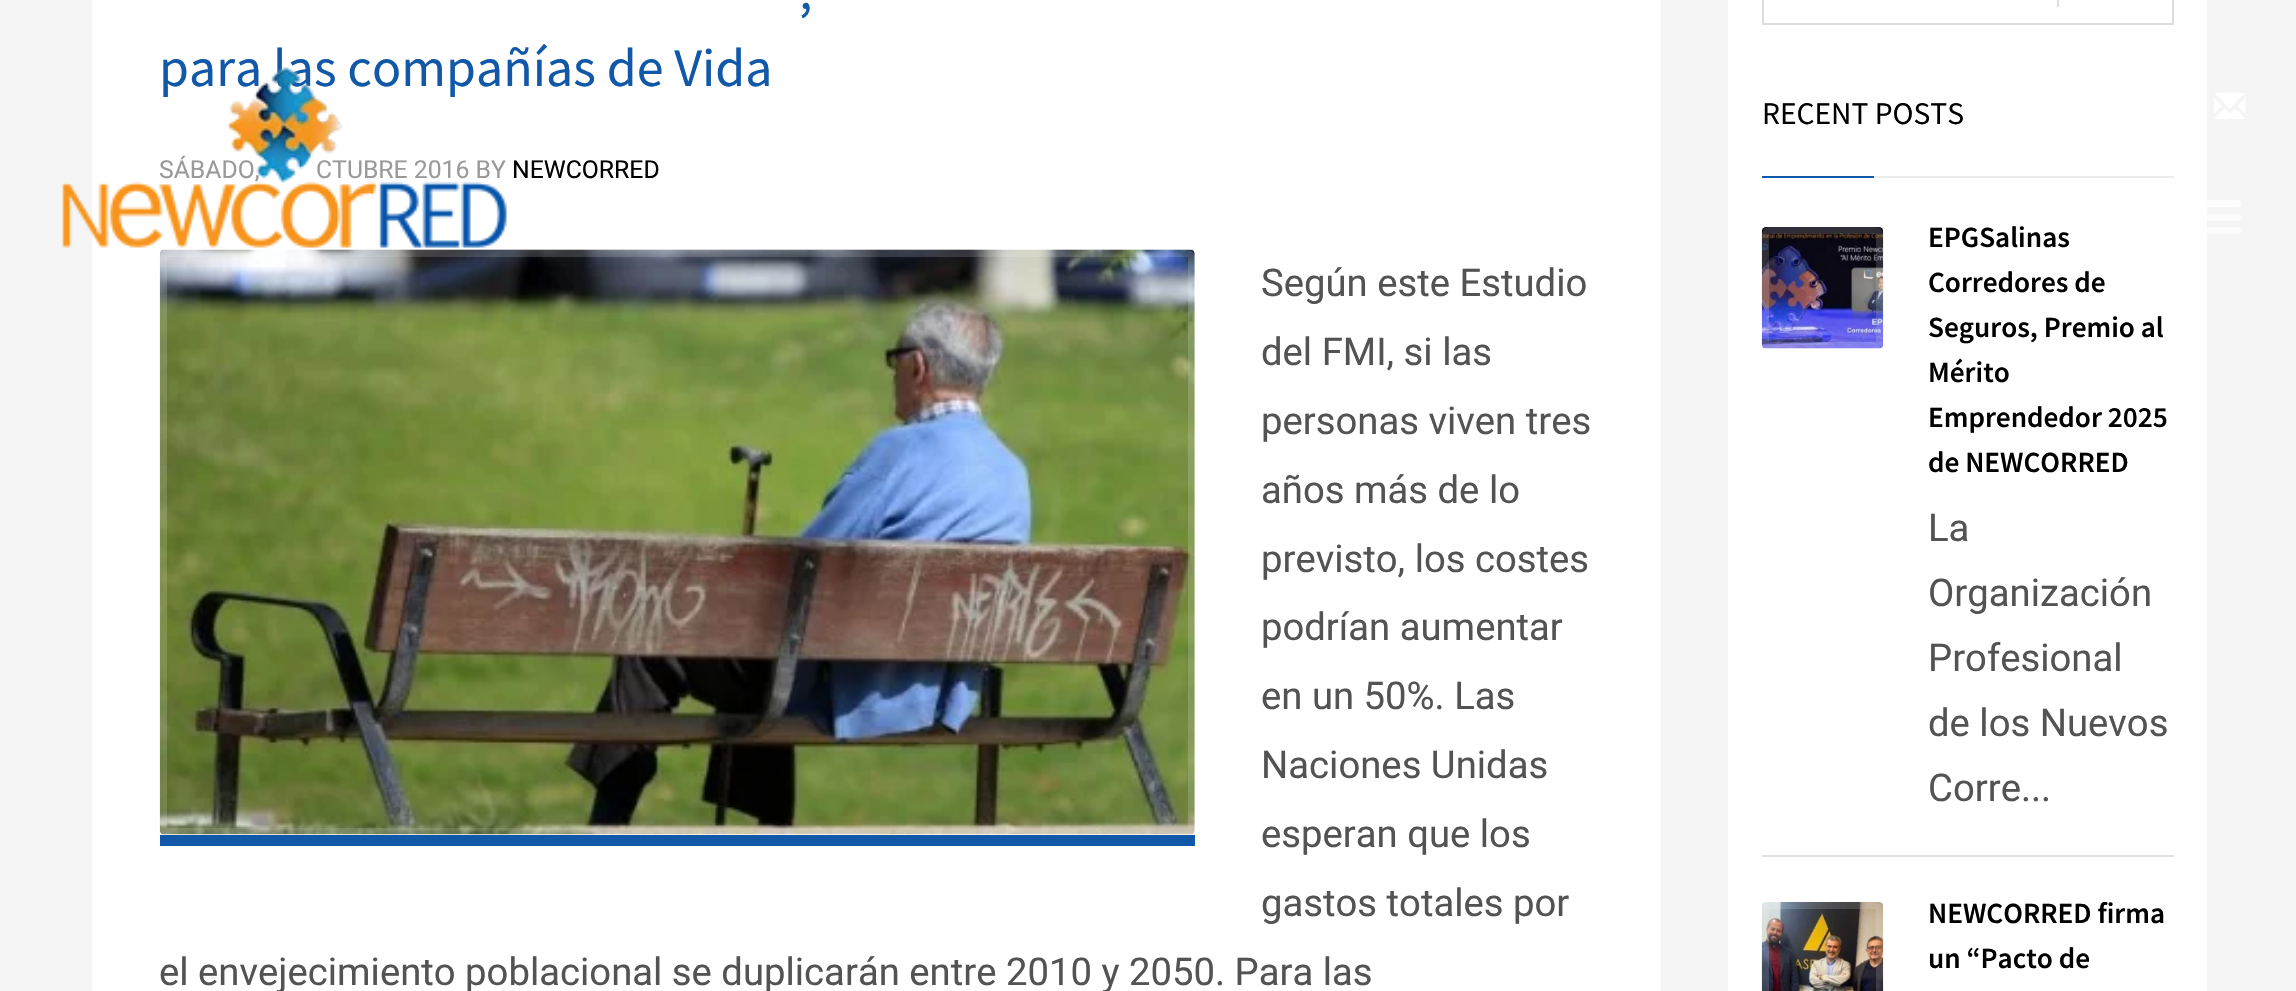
void draw(SkCanvas* canvas) {
    SkPaint paint;
    paint.setAntiAlias(true);
    canvas->clear(0xFFF5F5F5);
    paint.setColor(0xFFFFFFFF);
    canvas->drawRect(SkRect::MakeXYWH(92, 0, 1569, 991), paint);
    SkFont font1(fontMgr->matchFamilyStyle("Source Sans Pro", SkFontStyle::Normal()), 54);
    font1.setSubpixel(true);
    paint.setColor(0xFF1158A8);
    canvas->drawString(",", 799, 9, font1, paint);
    canvas->drawString("para las compañías de Vida", 159, 86, font1, paint);
    SkFont font2(fontMgr->matchFamilyStyle("Roboto", SkFontStyle::Normal()), 24.75f);
    font2.setSubpixel(true);
    paint.setColor(0xFF9A9A9A);
    canvas->drawString("SÁBADO,", 159, 178, font2, paint);
    canvas->drawString("CTUBRE 2016 BY", 316, 178, font2, paint);
    paint.setColor(0xFF000000);
    canvas->drawString("NEWCORRED", 512, 178, font2, paint);
    paint.setColor(0xFF1158A8);
    canvas->drawRect(SkRect::MakeXYWH(160, 835, 1035, 11), paint);
    canvas->drawImageRect(SkImages::DeferredFromEncodedData(SkData::MakeFromFileName("img1.png")), SkRect::MakeXYWH(159, 249, 1036, 586), SkSamplingOptions());
    paint.setStyle(SkPaint::kStroke_Style);
    paint.setStrokeWidth(7);
    paint.setColor(0x26FFFFFF);
    canvas->drawRoundRect(SkRect::MakeXYWH(163.5f, 253.5f, 1028, 578), 3.5f, 3.5f, paint);
    SkFont font3(fontMgr->matchFamilyStyle("Roboto", SkFontStyle::Normal()), 38.25f);
    font3.setSubpixel(true);
    paint.setStyle(SkPaint::kFill_Style);
    paint.setColor(0xFF535353);
    canvas->drawString("Según este Estudio", 1261, 296, font3, paint);
    canvas->drawString("del FMI, si las", 1261, 365, font3, paint);
    canvas->drawString("personas viven tres", 1261, 434, font3, paint);
    canvas->drawString("años más de lo", 1261, 503, font3, paint);
    canvas->drawString("previsto, los costes", 1261, 572, font3, paint);
    canvas->drawString("podrían aumentar", 1261, 640, font3, paint);
    canvas->drawString("en un 50%. Las", 1261, 709, font3, paint);
    canvas->drawString("Naciones Unidas", 1261, 778, font3, paint);
    canvas->drawString("esperan que los", 1261, 847, font3, paint);
    canvas->drawString("gastos totales por", 1261, 916, font3, paint);
    canvas->drawString("el envejecimiento poblacional se duplicarán entre 2010 y 2050. Para las", 159, 985, font3, paint);
    paint.setColor(0xFFFFFFFF);
    canvas->drawRect(SkRect::MakeXYWH(1728, 0, 479, 991), paint);
    paint.setStyle(SkPaint::kStroke_Style);
    paint.setStrokeWidth(2);
    paint.setColor(0xFFDDDDDD);
    canvas->drawRect(SkRect::MakeXYWH(1763, -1, 410, 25), paint);
    paint.setStyle(SkPaint::kFill_Style);
    canvas->drawRect(SkRect::MakeXYWH(2057, 0, 2, 7), paint);
    SkFont font4(fontMgr->matchFamilyStyle("Source Sans Pro", SkFontStyle::Normal()), 31.5f);
    font4.setSubpixel(true);
    paint.setColor(0xFF000000);
    canvas->drawString("RECENT POSTS", 1762, 124, font4, paint);
    paint.setColor(0xFF1158A8);
    canvas->drawRect(SkRect::MakeXYWH(1762, 176, 112, 2), paint);
    paint.setColor(0xFFECECEC);
    canvas->drawRect(SkRect::MakeXYWH(1874, 176, 300, 2), paint);
    paint.setColor(0xFFE3E3E3);
    canvas->drawRect(SkRect::MakeXYWH(1762, 855, 412, 2), paint);
    canvas->drawImageRect(SkImages::DeferredFromEncodedData(SkData::MakeFromFileName("img2.png")), SkRect::MakeXYWH(1761, 227, 123, 122), SkSamplingOptions());
    paint.setStyle(SkPaint::kStroke_Style);
    paint.setStrokeWidth(7);
    paint.setColor(0x26FFFFFF);
    canvas->drawRoundRect(SkRect::MakeXYWH(1765.5f, 230.5f, 114, 115), 3.5f, 3.5f, paint);
    SkFont font5(fontMgr->matchFamilyStyle("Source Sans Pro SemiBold", SkFontStyle(600, SkFontStyle::kNormal_Width, SkFontStyle::kUpright_Slant)), 29.25f);
    font5.setSubpixel(true);
    paint.setStyle(SkPaint::kFill_Style);
    paint.setColor(0xFF000000);
    canvas->drawString("EPGSalinas", 1928, 247, font5, paint);
    canvas->drawString("Corredores de", 1928, 292, font5, paint);
    canvas->drawString("Seguros, Premio al", 1928, 337, font5, paint);
    canvas->drawString("Mérito", 1928, 382, font5, paint);
    canvas->drawString("Emprendedor 2025", 1928, 427, font5, paint);
    canvas->drawString("de NEWCORRED", 1928, 472, font5, paint);
    paint.setColor(0xFF535353);
    canvas->drawString("La", 1928, 541, font3, paint);
    canvas->drawString("Organización", 1928, 606, font3, paint);
    canvas->drawString("Profesional", 1928, 671, font3, paint);
    canvas->drawString("de los Nuevos", 1928, 736, font3, paint);
    canvas->drawString("Corre...", 1928, 801, font3, paint);
    canvas->drawImageRect(SkImages::DeferredFromEncodedData(SkData::MakeFromFileName("img3.png")), SkRect::MakeXYWH(1761, 902, 123, 89), SkSamplingOptions());
    paint.setStyle(SkPaint::kStroke_Style);
    paint.setColor(0x26FFFFFF);
    canvas->drawRoundRect(SkRect::MakeXYWH(1765.5f, 905.5f, 114, 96), 3.5f, 3.5f, paint);
    paint.setStyle(SkPaint::kFill_Style);
    paint.setColor(0xFF000000);
    canvas->drawString("NEWCORRED firma", 1928, 923, font5, paint);
    canvas->drawString("un “Pacto de", 1928, 968, font5, paint);
    canvas->drawImageRect(SkImages::DeferredFromEncodedData(SkData::MakeFromFileName("img4.png")), SkRect::MakeXYWH(62, 67, 445, 181), SkSamplingOptions());
    canvas->drawImageRect(SkImages::DeferredFromEncodedData(SkData::MakeFromFileName("img5.png")), SkRect::MakeXYWH(2214, 93, 32, 26), SkSamplingOptions());
    paint.setColor(0xADFFFFFF);
    canvas->drawRoundRect(SkRect::MakeXYWH(2196, 200, 45, 7), 3.5f, 3.5f, paint);
    canvas->drawRoundRect(SkRect::MakeXYWH(2196, 214, 45, 7), 3.5f, 3.5f, paint);
    canvas->drawRoundRect(SkRect::MakeXYWH(2196, 227, 45, 7), 3.5f, 3.5f, paint);
}
